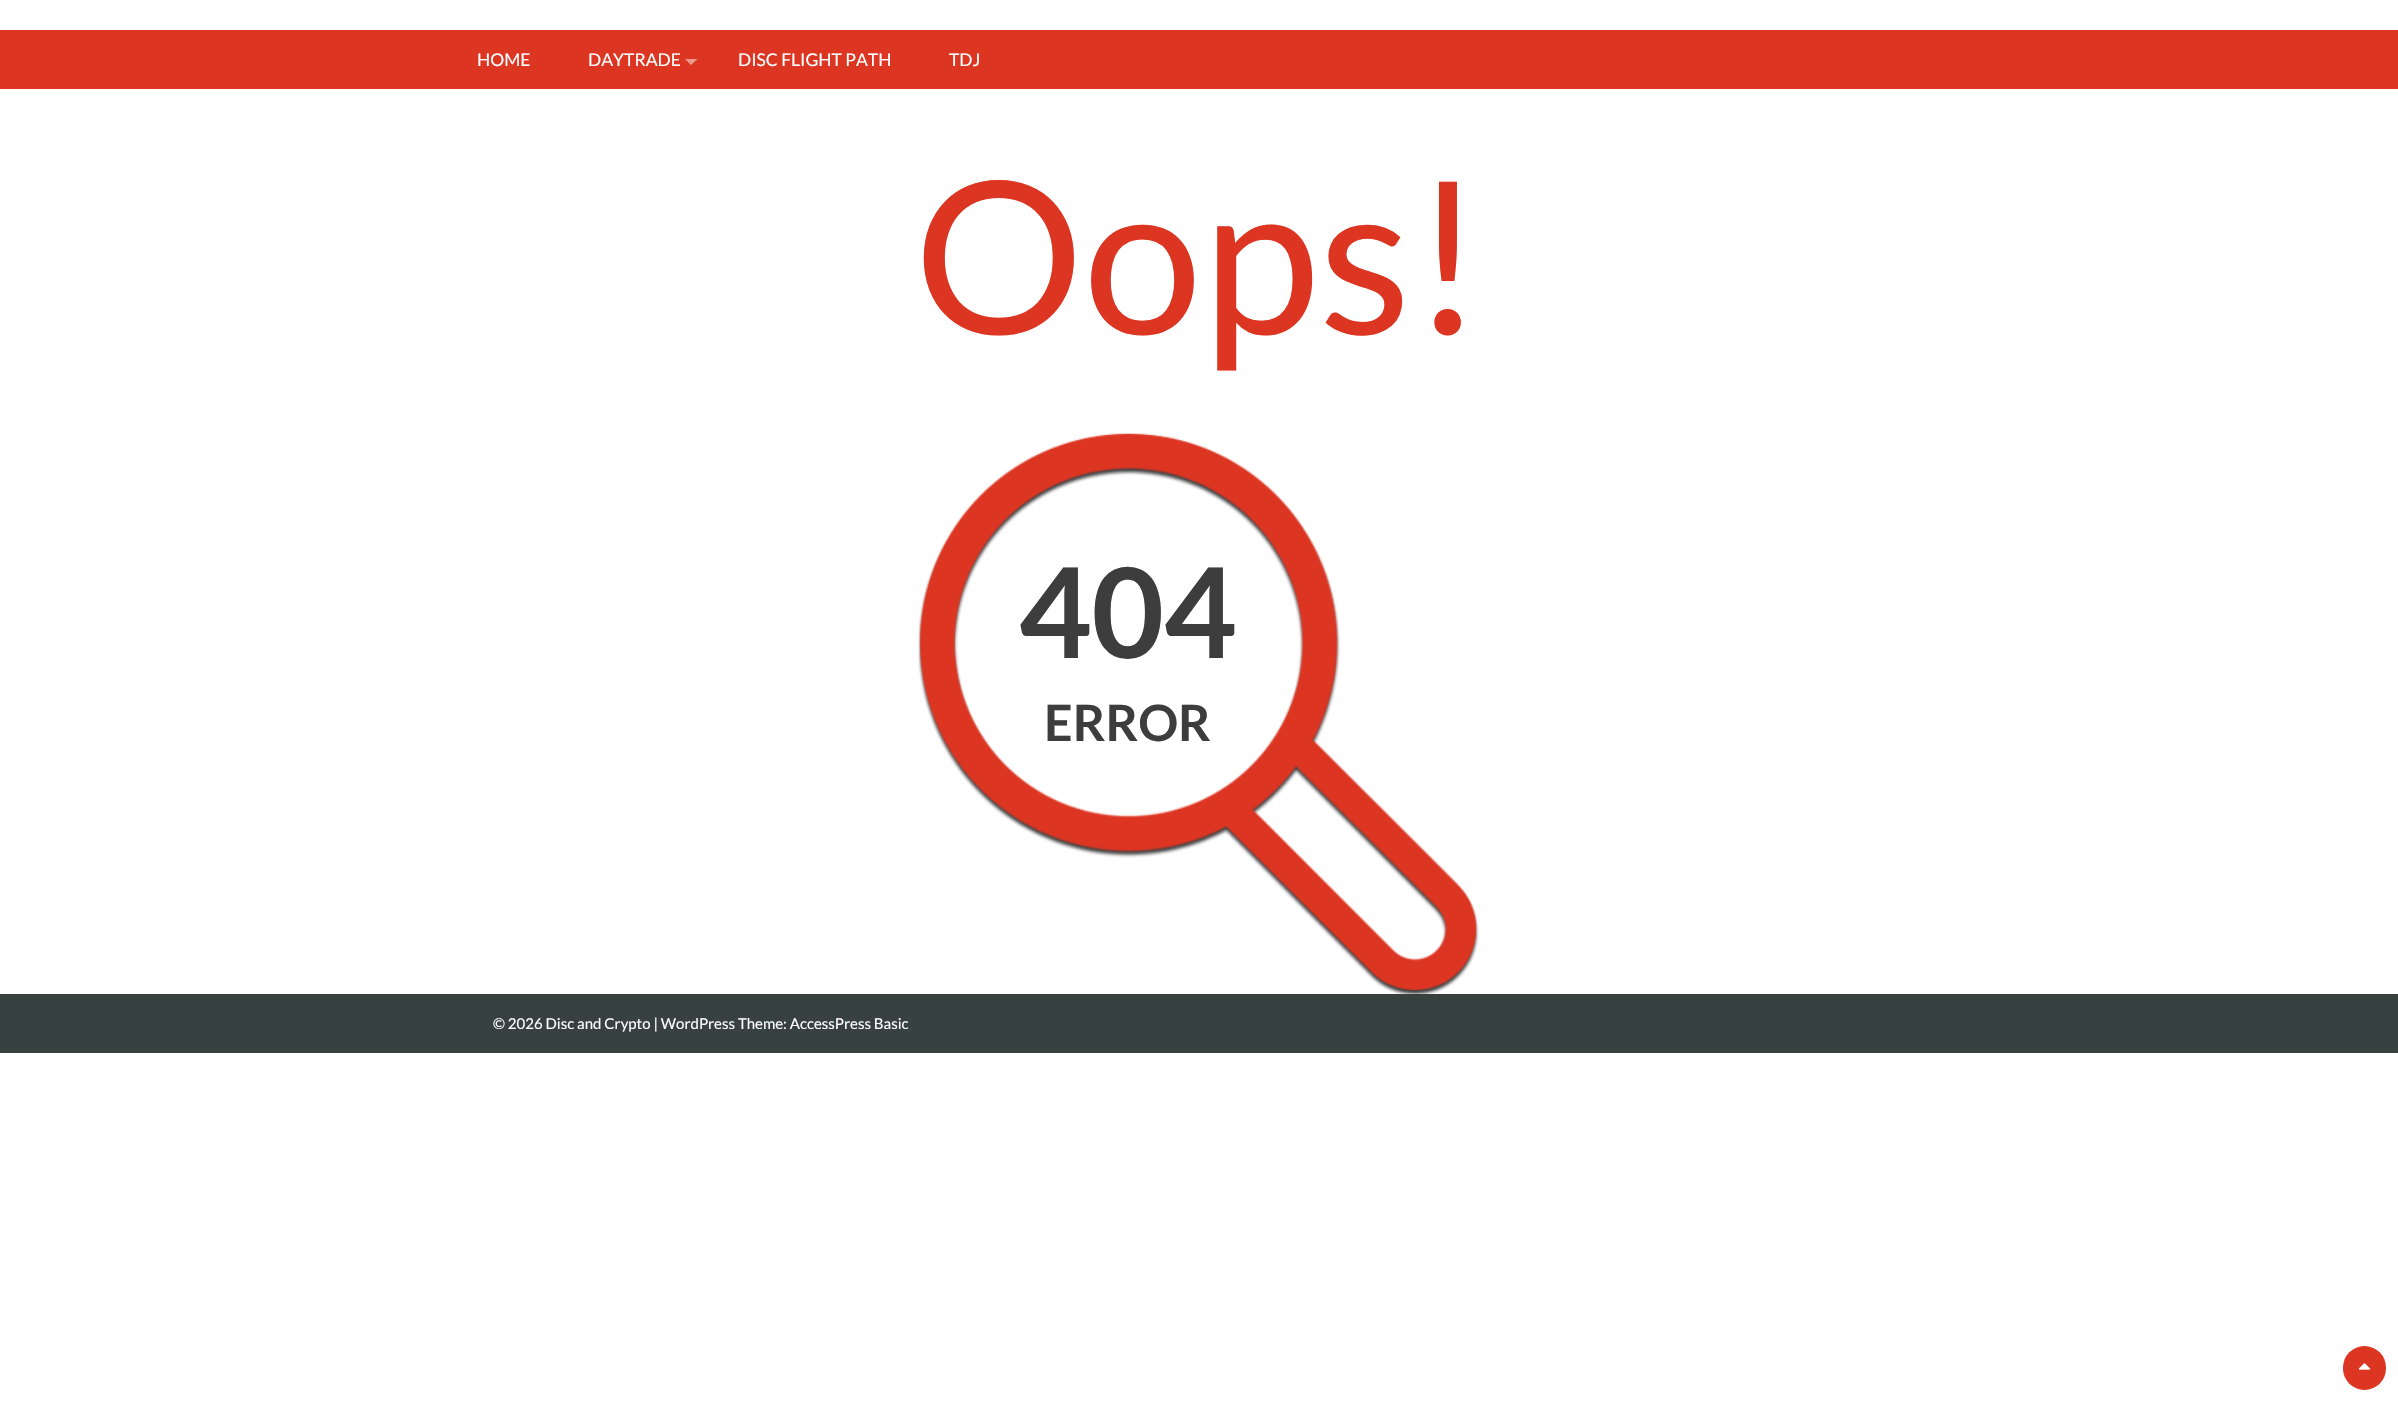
void draw(SkCanvas* canvas) {
    SkPaint paint;
    paint.setAntiAlias(true);
    canvas->clear(0xFFFFFFFF);
    paint.setColor(0xFFDC3522);
    canvas->drawRect(SkRect::MakeXYWH(0, 30, 2398, 59), paint);
    SkFont font1(fontMgr->matchFamilyStyle("Lato", SkFontStyle::Normal()), 17.5f);
    font1.setSubpixel(true);
    paint.setColor(0xFFFFFFFF);
    canvas->drawString("HOME", 477, 66, font1, paint);
    canvas->drawString("DAYTRADE", 588, 66, font1, paint);
    paint.setColor(0xFFEE9A91);
    canvas->drawPath(SkPathBuilder().moveTo(685, 59).lineTo(697.5f, 59).lineTo(691, 65).close().detach(), paint);
    paint.setColor(0xFFFFFFFF);
    canvas->drawString("DISC FLIGHT PATH", 738, 66, font1, paint);
    canvas->drawString("TDJ", 949, 66, font1, paint);
    SkFont font2(fontMgr->matchFamilyStyle("Lato", SkFontStyle::Normal()), 212.5f);
    font2.setSubpixel(true);
    paint.setColor(0xFFDC3522);
    canvas->drawString("Oops!", 914, 334, font2, paint);
    canvas->drawImageRect(SkImages::DeferredFromEncodedData(SkData::MakeFromFileName("img1.png")), SkRect::MakeXYWH(918, 433, 561, 561), SkSamplingOptions());
    SkFont font3(fontMgr->matchFamilyStyle("Lato", SkFontStyle::Bold()), 125);
    font3.setSubpixel(true);
    paint.setColor(0xFF3D3D3D);
    canvas->drawString("404", 1019, 658, font3, paint);
    SkFont font4(fontMgr->matchFamilyStyle("Lato", SkFontStyle::Bold()), 50);
    font4.setSubpixel(true);
    canvas->drawString("ERROR", 1044, 741, font4, paint);
    paint.setColor(0xFF374140);
    canvas->drawRect(SkRect::MakeXYWH(0, 994, 2398, 59), paint);
    SkFont font5(fontMgr->matchFamilyStyle("Lato", SkFontStyle::Normal()), 15);
    font5.setSubpixel(true);
    paint.setColor(0xFFFFFFFF);
    canvas->drawString("© 2026 Disc and Crypto | WordPress Theme: AccessPress Basic", 493, 1029, font5, paint);
    paint.setColor(0xFFDC3522);
    canvas->drawRoundRect(SkRect::MakeXYWH(2343, 1346, 43, 44), 21.5f, 21.5f, paint);
    canvas->drawImageRect(SkImages::DeferredFromEncodedData(SkData::MakeFromFileName("img2.png")), SkRect::MakeXYWH(2358, 1363, 13, 7), SkSamplingOptions());
}
